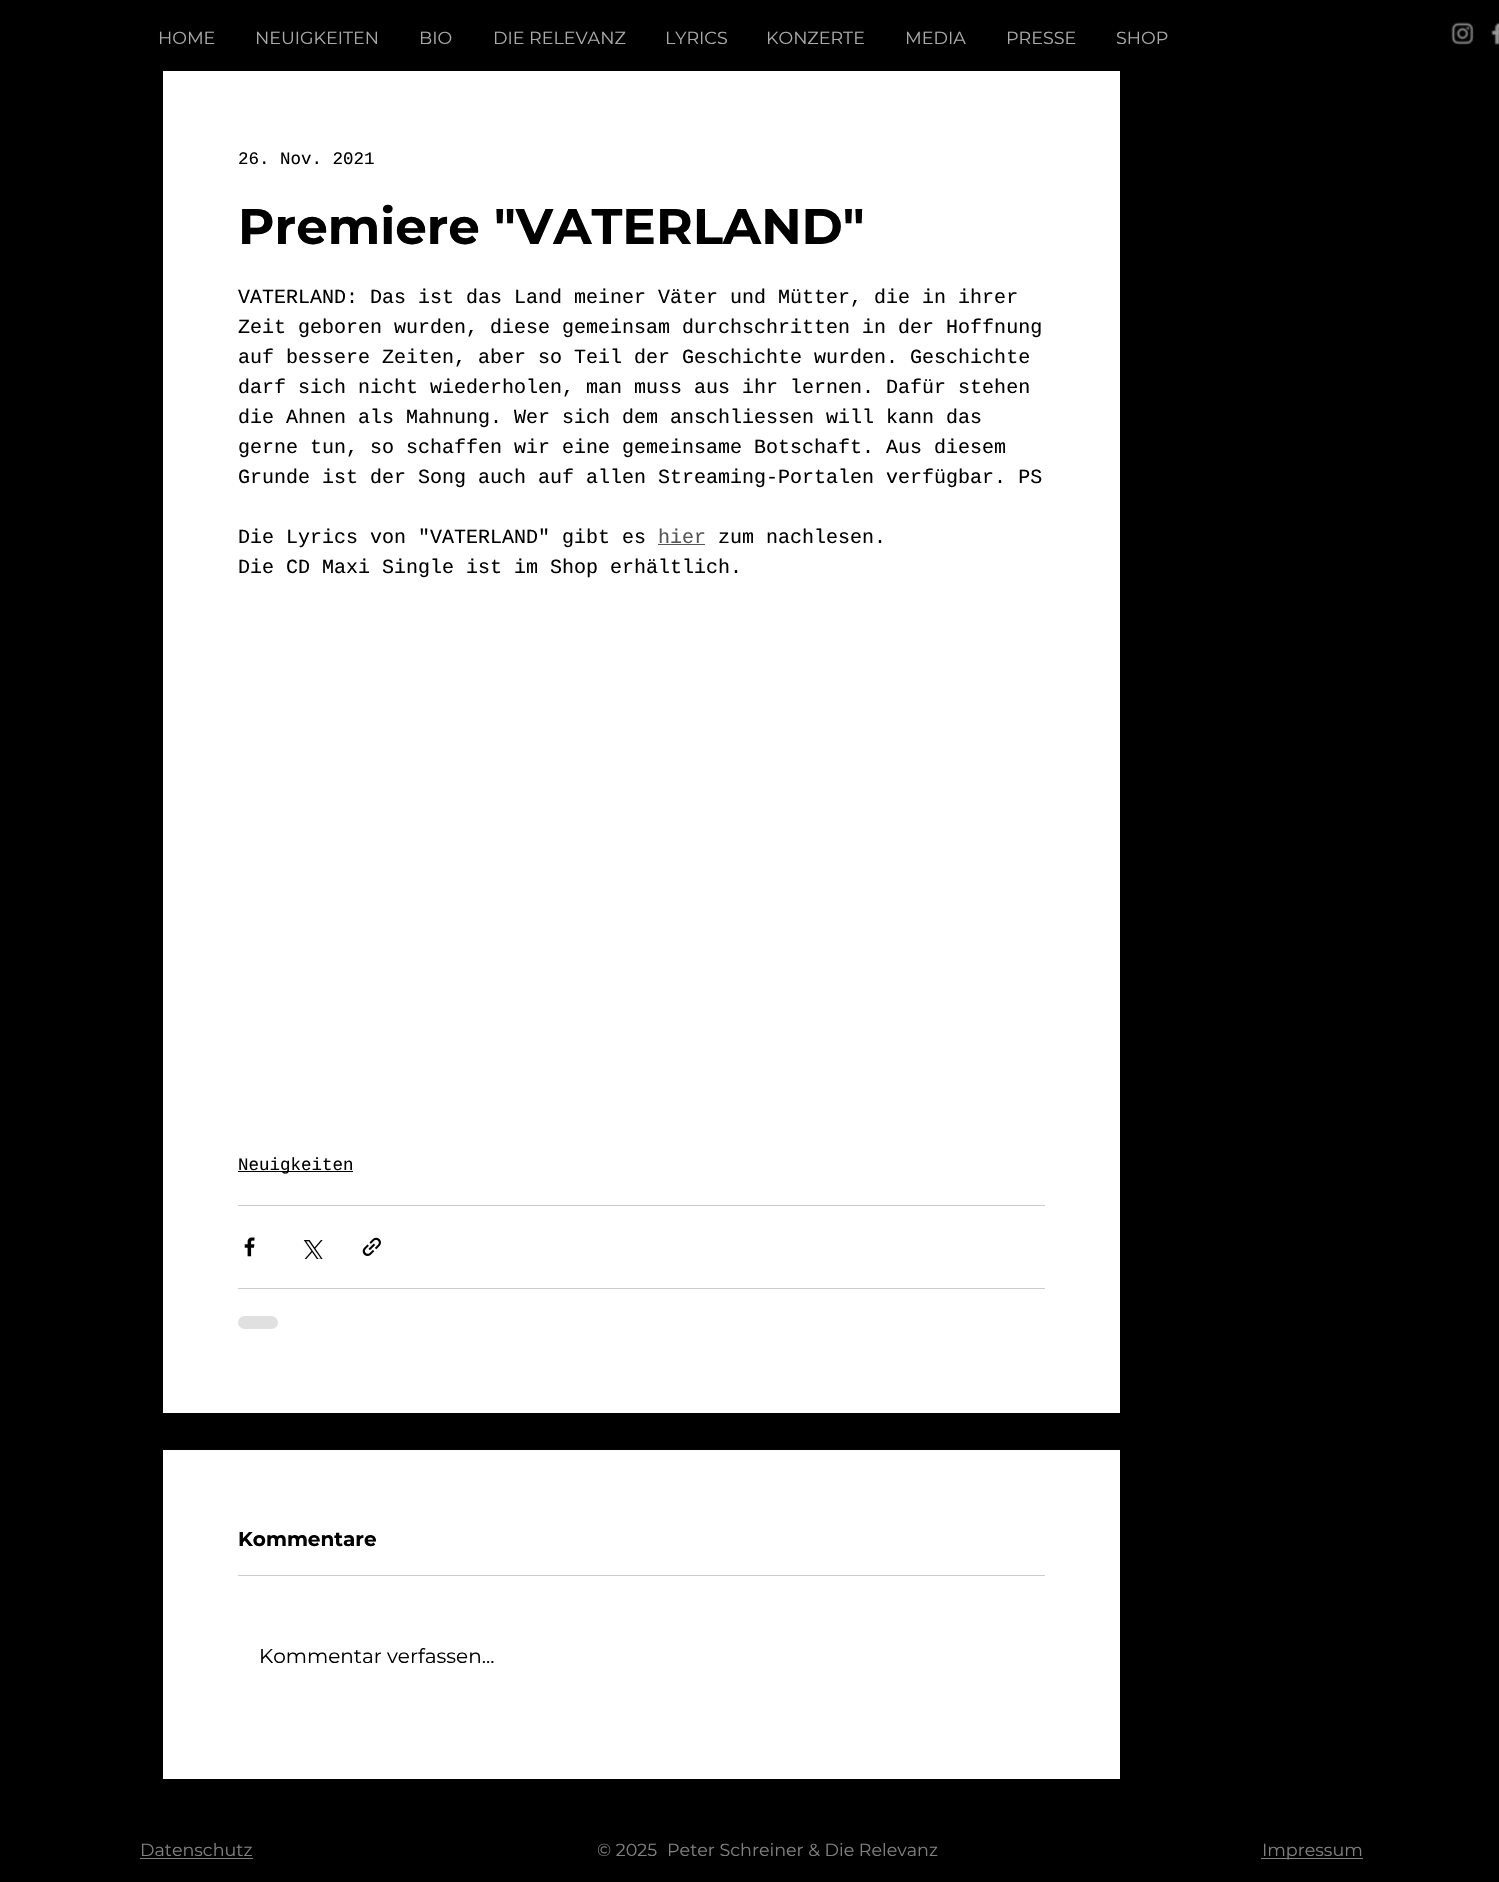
void draw(SkCanvas* canvas) {
    SkPaint paint;
    paint.setAntiAlias(true);
    canvas->clear(0xFF000000);
    SkFont font1(fontMgr->matchFamilyStyle("Montserrat", SkFontStyle::Normal()), 17.5f);
    font1.setSubpixel(true);
    paint.setColor(0xFFAAAAAA);
    canvas->drawString("HOME", 158, 44, font1, paint);
    canvas->drawString("NEUIGKEITEN", 255, 44, font1, paint);
    canvas->drawString("BIO", 419, 44, font1, paint);
    canvas->drawString("DIE RELEVANZ", 493, 44, font1, paint);
    canvas->drawString("LYRICS", 665, 44, font1, paint);
    canvas->drawString("KONZERTE", 766, 44, font1, paint);
    canvas->drawString("MEDIA", 905, 44, font1, paint);
    canvas->drawString("PRESSE", 1006, 44, font1, paint);
    canvas->drawString("SHOP", 1116, 44, font1, paint);
    canvas->drawImageRect(SkImages::DeferredFromEncodedData(SkData::MakeFromFileName("img1.png")), SkRect::MakeXYWH(1451, 22, 23, 23), SkSamplingOptions());
    canvas->drawImageRect(SkImages::DeferredFromEncodedData(SkData::MakeFromFileName("img2.png")), SkRect::MakeXYWH(1490, 22, 9, 23), SkSamplingOptions());
    paint.setColor(0xFFFFFFFF);
    canvas->drawRect(SkRect::MakeXYWH(163, 71, 957, 1342), paint);
    SkFont font2(fontMgr->matchFamilyStyle("Liberation Mono", SkFontStyle::Normal()), 17.5f);
    font2.setSubpixel(true);
    paint.setColor(0xFF000000);
    canvas->drawString("26. Nov. 2021", 238, 164, font2, paint);
    SkFont font3(fontMgr->matchFamilyStyle("Montserrat", SkFontStyle::Bold()), 50);
    font3.setSubpixel(true);
    canvas->drawString("Premiere \"VATERLAND\"", 238, 244, font3, paint);
    SkFont font4(fontMgr->matchFamilyStyle("Liberation Mono", SkFontStyle::Normal()), 20);
    font4.setSubpixel(true);
    canvas->drawString("VATERLAND: Das ist das Land meiner Väter und Mütter, die in ihrer", 238, 303, font4, paint);
    canvas->drawString("Zeit geboren wurden, diese gemeinsam durchschritten in der Hoffnung", 238, 333, font4, paint);
    canvas->drawString("auf bessere Zeiten, aber so Teil der Geschichte wurden. Geschichte", 238, 363, font4, paint);
    canvas->drawString("darf sich nicht wiederholen, man muss aus ihr lernen. Dafür stehen", 238, 393, font4, paint);
    canvas->drawString("die Ahnen als Mahnung. Wer sich dem anschliessen will kann das", 238, 423, font4, paint);
    canvas->drawString("gerne tun, so schaffen wir eine gemeinsame Botschaft. Aus diesem", 238, 453, font4, paint);
    canvas->drawString("Grunde ist der Song auch auf allen Streaming-Portalen verfügbar. PS", 238, 483, font4, paint);
    canvas->drawString("Die Lyrics von \"VATERLAND\" gibt es", 238, 543, font4, paint);
    paint.setColor(0xFF555555);
    canvas->drawString("hier", 658, 543, font4, paint);
    canvas->drawRect(SkRect::MakeXYWH(658, 544, 47, 1), paint);
    paint.setColor(0xFF000000);
    canvas->drawString("zum nachlesen.", 718, 543, font4, paint);
    canvas->drawString("Die CD Maxi Single ist im Shop erhältlich.", 238, 573, font4, paint);
    canvas->drawRect(SkRect::MakeXYWH(238, 1171, 115, 1), paint);
    canvas->drawString("Neuigkeiten", 238, 1170, font2, paint);
    paint.setColor(0xFFCCCCCC);
    canvas->drawRect(SkRect::MakeXYWH(238, 1205, 807, 1), paint);
    canvas->drawImageRect(SkImages::DeferredFromEncodedData(SkData::MakeFromFileName("img3.png")), SkRect::MakeXYWH(244, 1237, 11, 20), SkSamplingOptions());
    canvas->drawImageRect(SkImages::DeferredFromEncodedData(SkData::MakeFromFileName("img4.png")), SkRect::MakeXYWH(303, 1240, 20, 19), SkSamplingOptions());
    canvas->drawImageRect(SkImages::DeferredFromEncodedData(SkData::MakeFromFileName("img5.png")), SkRect::MakeXYWH(362, 1237, 19, 19), SkSamplingOptions());
    canvas->drawRect(SkRect::MakeXYWH(238, 1288, 807, 1), paint);
    paint.setColor(0xFFE0E0E0);
    canvas->drawRoundRect(SkRect::MakeXYWH(238, 1316, 40, 13), 6.5f, 6.5f, paint);
    paint.setColor(0xFFFFFFFF);
    canvas->drawRect(SkRect::MakeXYWH(163, 1450, 957, 329), paint);
    SkFont font5(fontMgr->matchFamilyStyle("Montserrat", SkFontStyle::Bold()), 20);
    font5.setSubpixel(true);
    paint.setColor(0xFF000000);
    canvas->drawString("Kommentare", 238, 1546, font5, paint);
    paint.setColor(0xFFCCCCCC);
    canvas->drawRect(SkRect::MakeXYWH(238, 1575, 807, 1), paint);
    SkFont font6(fontMgr->matchFamilyStyle("Montserrat", SkFontStyle::Normal()), 20);
    font6.setSubpixel(true);
    paint.setColor(0xFF000000);
    canvas->drawString("Kommentar verfassen...", 259, 1663, font6, paint);
    paint.setColor(0xFF808080);
    canvas->drawString("Datenschutz", 140, 1856, font1, paint);
    canvas->drawRect(SkRect::MakeXYWH(140, 1858, 113, 1), paint);
    canvas->drawString("© 2025", 597, 1856, font1, paint);
    canvas->drawString("Peter Schreiner & Die Relevanz", 667, 1856, font1, paint);
    canvas->drawRect(SkRect::MakeXYWH(1261, 1858, 102, 1), paint);
    canvas->drawString("Impressum", 1262, 1856, font1, paint);
}
